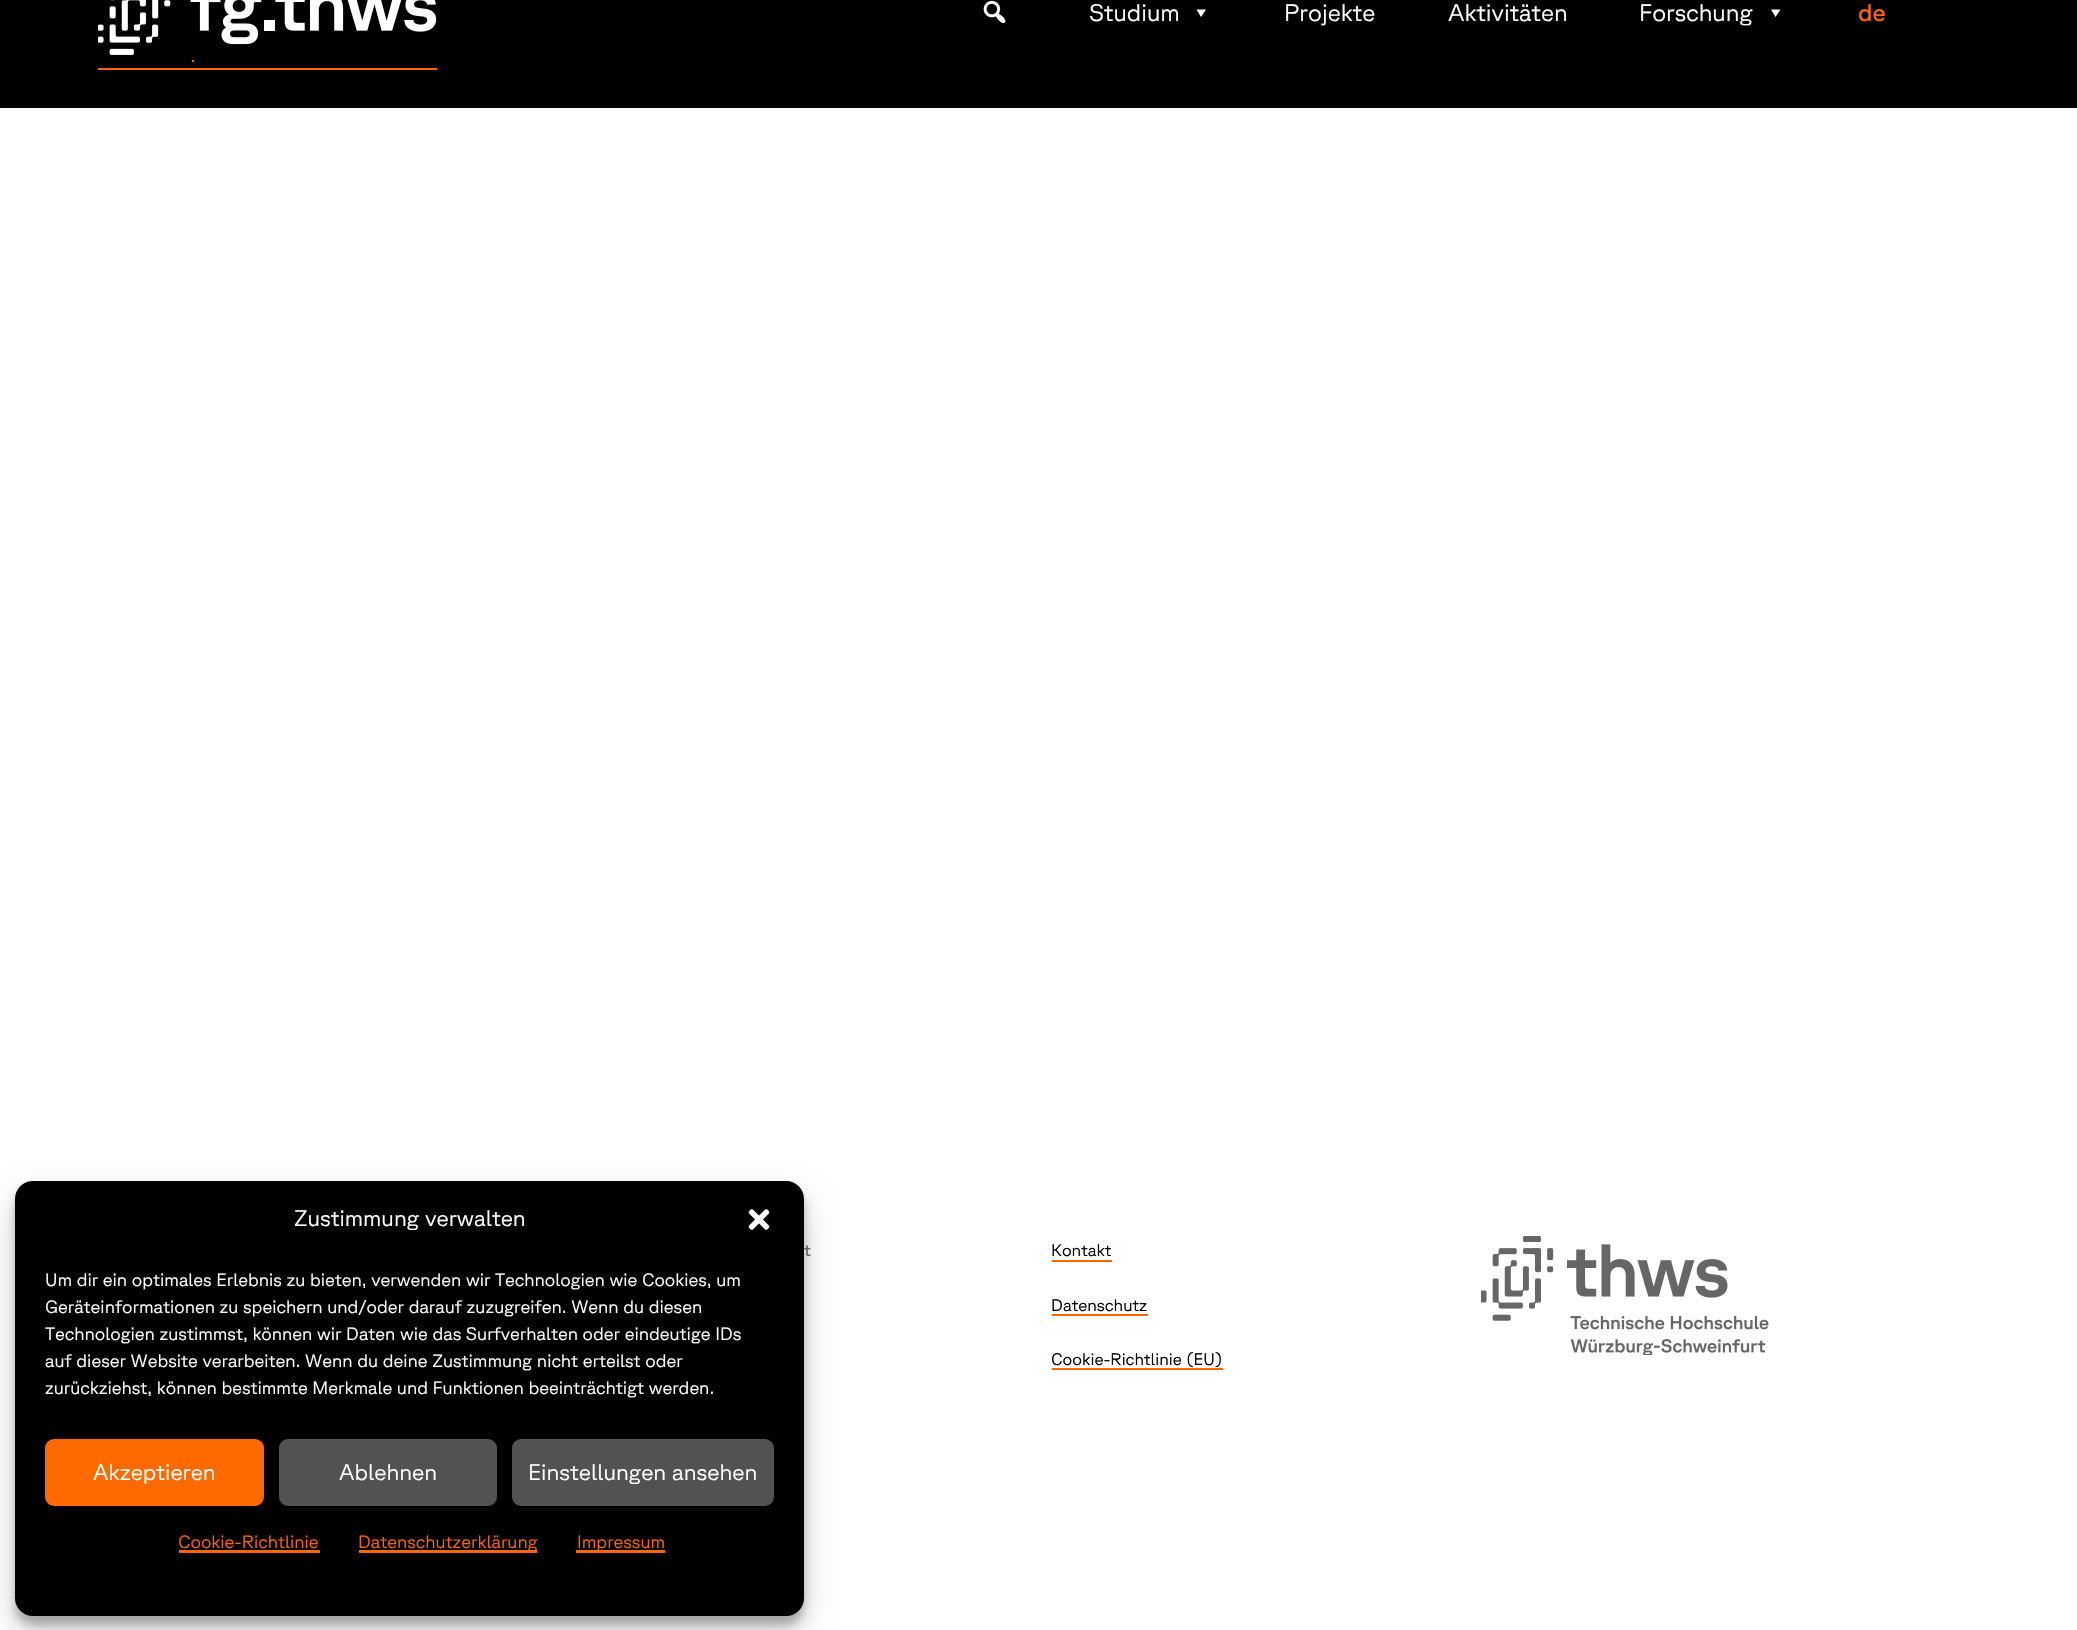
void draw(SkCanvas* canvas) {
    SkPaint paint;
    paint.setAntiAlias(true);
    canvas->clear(0xFFFFFFFF);
    paint.setColor(0x3B000000);
    paint.setMaskFilter(SkMaskFilter::MakeBlur(kNormal_SkBlurStyle, 4.5f));
    canvas->drawRoundRect(SkRect::MakeXYWH(15, 1190, 789, 435), 18, 18, paint);
    paint.setMaskFilter(nullptr);
    paint.setColor(0x30000000);
    paint.setMaskFilter(SkMaskFilter::MakeBlur(kNormal_SkBlurStyle, 15));
    canvas->drawRoundRect(SkRect::MakeXYWH(15, 1196, 789, 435), 18, 18, paint);
    paint.setMaskFilter(nullptr);
    SkFont font1(fontMgr->matchFamilyStyle("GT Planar", SkFontStyle::Normal()), 16.75f);
    font1.setSubpixel(true);
    paint.setColor(0xFF666666);
    canvas->drawString("t", 804, 1256, font1, paint);
    paint.setColor(0xFF000000);
    canvas->drawRoundRect(SkRect::MakeXYWH(15, 1181, 789, 435), 18, 18, paint);
    SkFont font2(fontMgr->matchFamilyStyle("GT Planar", SkFontStyle(300, SkFontStyle::kNormal_Width, SkFontStyle::kUpright_Slant)), 22.5f);
    font2.setSubpixel(true);
    paint.setColor(0xFFFFFFFF);
    canvas->drawString("Zustimmung verwalten", 294, 1226, font2, paint);
    canvas->drawImageRect(SkImages::DeferredFromEncodedData(SkData::MakeFromFileName("img1.png")), SkRect::MakeXYWH(748, 1209, 22, 21), SkSamplingOptions());
    SkFont font3(fontMgr->matchFamilyStyle("GT Planar", SkFontStyle(300, SkFontStyle::kNormal_Width, SkFontStyle::kUpright_Slant)), 18);
    font3.setSubpixel(true);
    canvas->drawString("Um dir ein optimales Erlebnis zu bieten, verwenden wir Technologien wie Cookies, um", 45, 1286, font3, paint);
    canvas->drawString("Geräteinformationen zu speichern und/oder darauf zuzugreifen. Wenn du diesen", 45, 1313, font3, paint);
    canvas->drawString("Technologien zustimmst, können wir Daten wie das Surfverhalten oder eindeutige IDs", 45, 1340, font3, paint);
    canvas->drawString("auf dieser Website verarbeiten. Wenn du deine Zustimmung nicht erteilst oder", 45, 1367, font3, paint);
    canvas->drawString("zurückziehst, können bestimmte Merkmale und Funktionen beeinträchtigt werden.", 45, 1394, font3, paint);
    paint.setColor(0xFFFF6A00);
    canvas->drawRoundRect(SkRect::MakeXYWH(46, 1440, 217, 65), 8, 8, paint);
    paint.setStyle(SkPaint::kStroke_Style);
    paint.setStrokeWidth(2);
    canvas->drawRoundRect(SkRect::MakeXYWH(46, 1440, 217, 65), 8, 8, paint);
    paint.setStyle(SkPaint::kFill_Style);
    paint.setColor(0xFFFFFFFF);
    canvas->drawString("Akzeptieren", 93, 1480, font2, paint);
    paint.setColor(0xFF525252);
    canvas->drawRoundRect(SkRect::MakeXYWH(280, 1440, 216, 65), 8, 8, paint);
    paint.setStyle(SkPaint::kStroke_Style);
    canvas->drawRoundRect(SkRect::MakeXYWH(280, 1440, 216, 65), 8, 8, paint);
    paint.setStyle(SkPaint::kFill_Style);
    paint.setColor(0xFFFFFFFF);
    canvas->drawString("Ablehnen", 339, 1480, font2, paint);
    paint.setColor(0xFF525252);
    canvas->drawRoundRect(SkRect::MakeXYWH(513, 1440, 260, 65), 8, 8, paint);
    paint.setStyle(SkPaint::kStroke_Style);
    canvas->drawRoundRect(SkRect::MakeXYWH(513, 1440, 260, 65), 8, 8, paint);
    paint.setStyle(SkPaint::kFill_Style);
    paint.setColor(0xFFFFFFFF);
    canvas->drawString("Einstellungen ansehen", 528, 1480, font2, paint);
    paint.setColor(0xFFFF6600);
    canvas->drawString("Cookie-Richtlinie", 178, 1548, font3, paint);
    canvas->drawRect(SkRect::MakeXYWH(179, 1552, 141, 1), paint);
    paint.setColor(0xFFFF6A00);
    canvas->drawRect(SkRect::MakeXYWH(179, 1550, 141, 2), paint);
    canvas->drawRect(SkRect::MakeXYWH(359, 1550, 178, 2), paint);
    paint.setColor(0xFFFF6600);
    canvas->drawString("Datenschutzerklärung", 358, 1548, font3, paint);
    canvas->drawRect(SkRect::MakeXYWH(359, 1552, 178, 1), paint);
    paint.setColor(0xFFFF6A00);
    canvas->drawRect(SkRect::MakeXYWH(576, 1550, 89, 2), paint);
    paint.setColor(0xFFFF6600);
    canvas->drawString("Impressum", 577, 1548, font3, paint);
    canvas->drawRect(SkRect::MakeXYWH(576, 1552, 89, 1), paint);
    paint.setColor(0xFF000000);
    canvas->drawRect(SkRect::MakeXYWH(0, 0, 2077, 108), paint);
    paint.setColor(0xFFFF6600);
    canvas->drawRect(SkRect::MakeXYWH(98, 68, 339, 2), paint);
    canvas->drawRect(SkRect::MakeXYWH(192, 60, 2, 2), paint);
    canvas->drawImageRect(SkImages::DeferredFromEncodedData(SkData::MakeFromFileName("img2.png")), SkRect::MakeXYWH(98, 0, 339, 55), SkSamplingOptions());
    canvas->drawImageRect(SkImages::DeferredFromEncodedData(SkData::MakeFromFileName("img3.png")), SkRect::MakeXYWH(983, 0, 23, 24), SkSamplingOptions());
    SkFont font4(fontMgr->matchFamilyStyle("GT Planar", SkFontStyle(300, SkFontStyle::kNormal_Width, SkFontStyle::kUpright_Slant)), 24);
    font4.setSubpixel(true);
    paint.setColor(0xFFFFFFFF);
    canvas->drawString("Studium", 1089, 21, font4, paint);
    canvas->drawPath(SkPathBuilder().moveTo(1206, 9.5f).lineTo(1201, 17).lineTo(1196.5f, 9.5f).close().detach(), paint);
    canvas->drawString("Projekte", 1284, 21, font4, paint);
    canvas->drawString("Aktivitäten", 1448, 21, font4, paint);
    canvas->drawString("Forschung", 1639, 21, font4, paint);
    canvas->drawPath(SkPathBuilder().moveTo(1780.5f, 9.5f).lineTo(1775.5f, 17).lineTo(1771, 9.5f).close().detach(), paint);
    SkFont font5(fontMgr->matchFamilyStyle("GT Planar", SkFontStyle::Normal()), 24);
    font5.setSubpixel(true);
    paint.setColor(0xFFFF6600);
    canvas->drawString("de", 1858, 21, font5, paint);
    SkFont font6(fontMgr->matchFamilyStyle("GT Planar", SkFontStyle(300, SkFontStyle::kNormal_Width, SkFontStyle::kUpright_Slant)), 16.75f);
    font6.setSubpixel(true);
    paint.setColor(0xFF000000);
    canvas->drawString("Kontakt", 1051, 1256, font6, paint);
    paint.setColor(0xFFFF6600);
    canvas->drawRect(SkRect::MakeXYWH(1052, 1260, 60, 2), paint);
    paint.setColor(0xFF000000);
    canvas->drawString("Datenschutz", 1051, 1311, font6, paint);
    paint.setColor(0xFFFF6600);
    canvas->drawRect(SkRect::MakeXYWH(1052, 1314, 96, 2), paint);
    paint.setColor(0xFF000000);
    canvas->drawString("Cookie-Richtlinie (EU)", 1051, 1365, font6, paint);
    paint.setColor(0xFFFF6600);
    canvas->drawRect(SkRect::MakeXYWH(1052, 1368, 171, 2), paint);
    canvas->drawImageRect(SkImages::DeferredFromEncodedData(SkData::MakeFromFileName("img4.png")), SkRect::MakeXYWH(1481, 1236, 288, 119), SkSamplingOptions());
}
